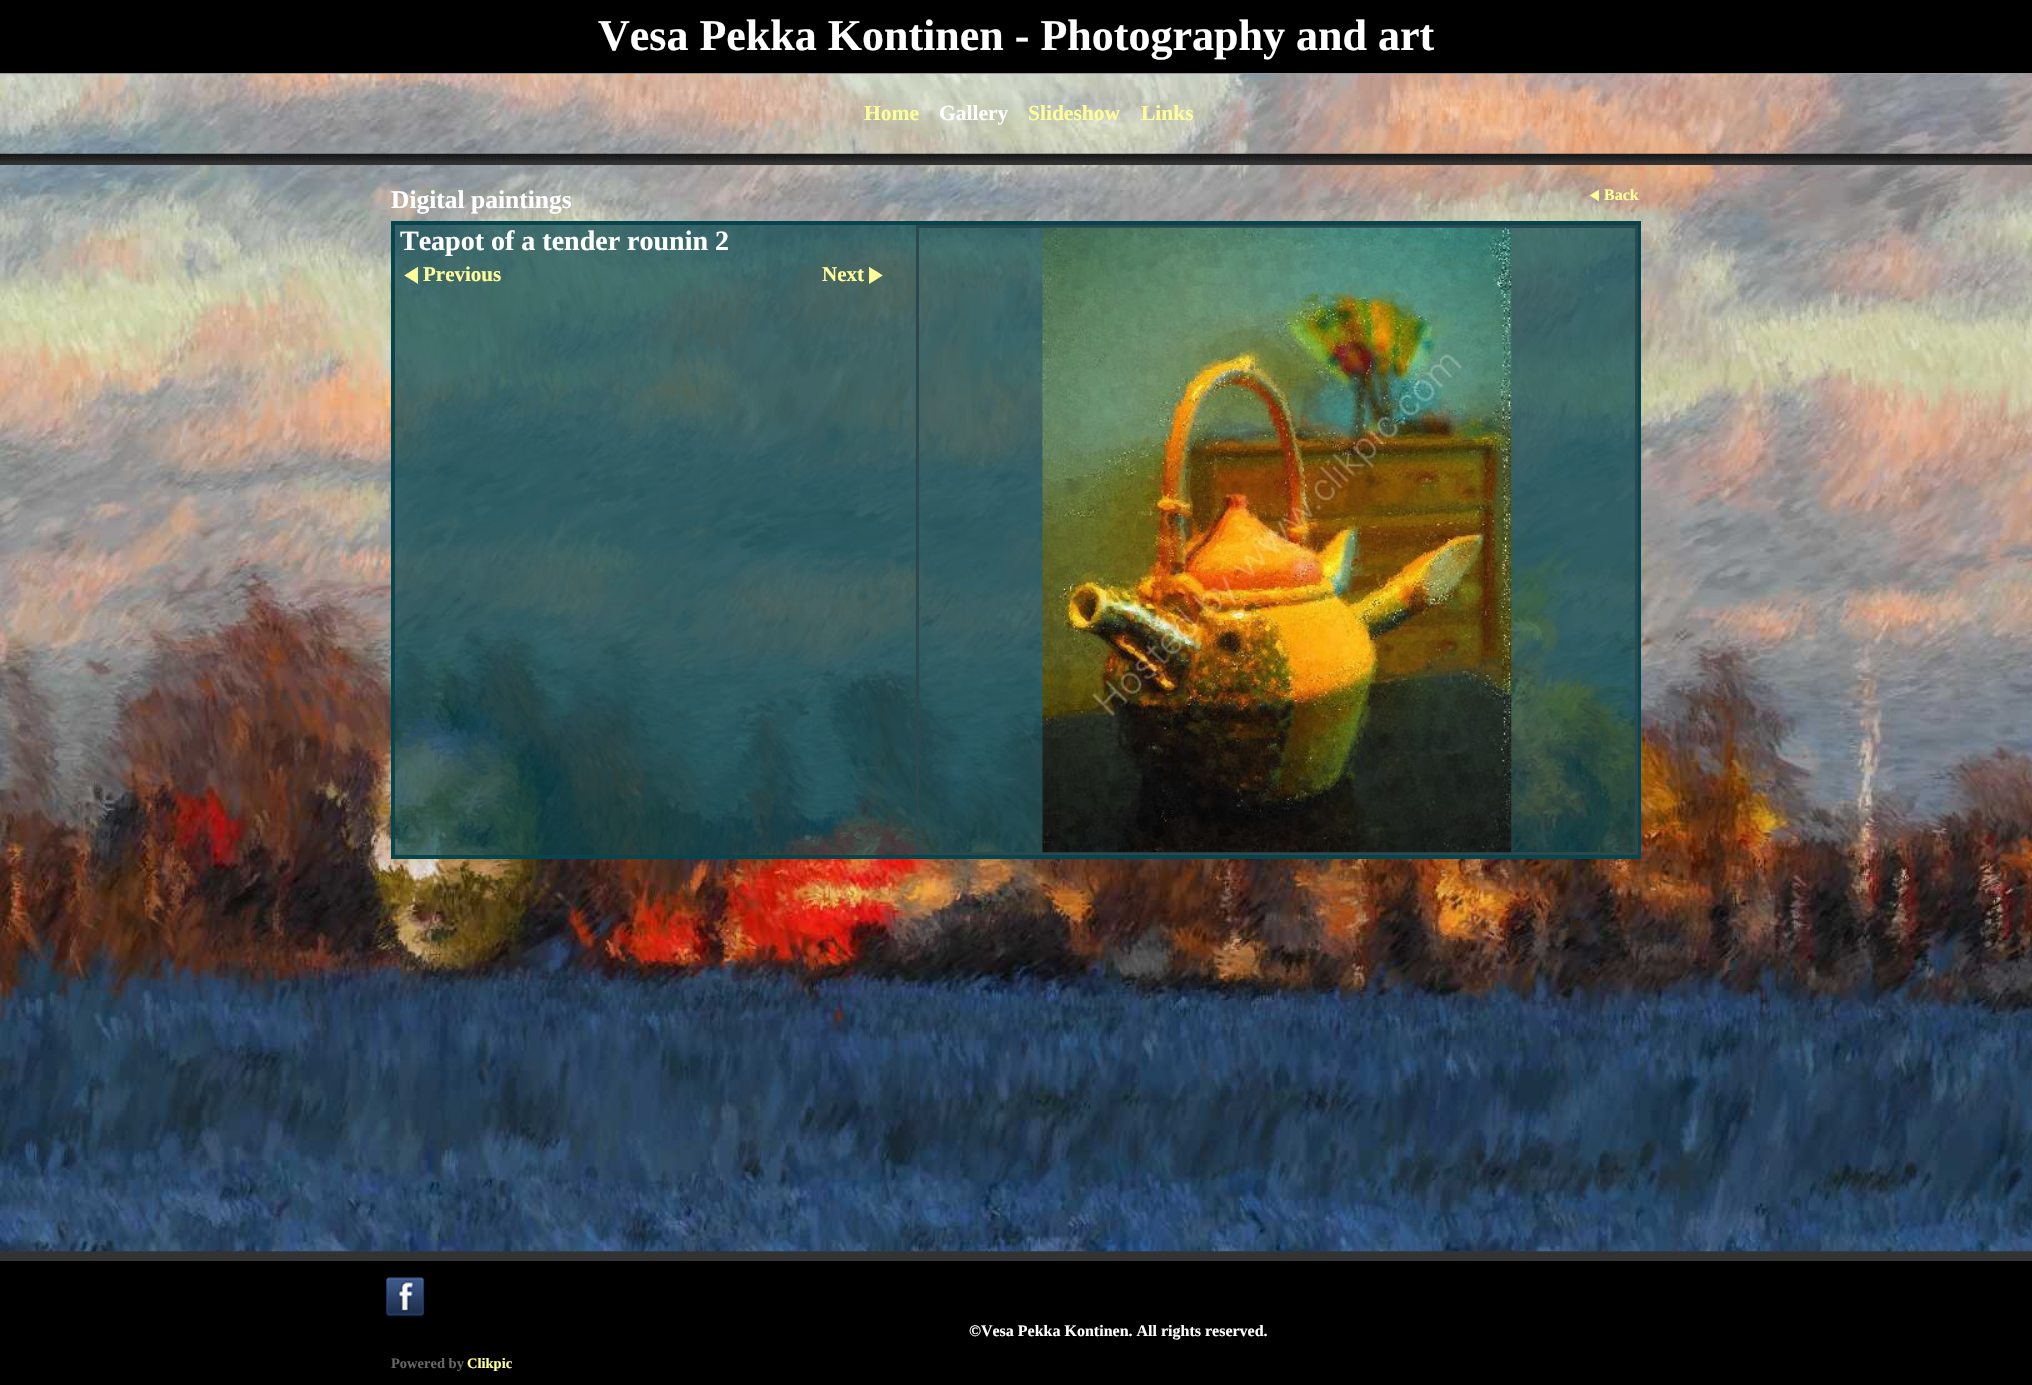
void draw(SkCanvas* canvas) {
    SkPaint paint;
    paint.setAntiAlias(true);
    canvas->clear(0xFF333333);
    canvas->drawImageRect(SkImages::DeferredFromEncodedData(SkData::MakeFromFileName("img1.png")), SkRect::MakeXYWH(0, 74, 2032, 1178), SkSamplingOptions());
    paint.setColor(0xFF000000);
    canvas->drawRect(SkRect::MakeXYWH(0, 0, 2032, 73), paint);
    paint.setColor(0xFF9A9A9A);
    canvas->drawRect(SkRect::MakeXYWH(0, 73, 2032, 1), paint);
    SkFont font1(fontMgr->matchFamilyStyle("Liberation Serif", SkFontStyle::Bold()), 44);
    font1.setSubpixel(true);
    paint.setColor(0xFFFFFFFF);
    canvas->drawString("Vesa Pekka Kontinen - Photography and art", 598, 50, font1, paint);
    SkFont font2(fontMgr->matchFamilyStyle("Liberation Serif", SkFontStyle::Bold()), 21.5f);
    font2.setSubpixel(true);
    paint.setColor(0xFFFFFF9A);
    canvas->drawString("Home", 864, 120, font2, paint);
    paint.setColor(0xFFFFFFFF);
    canvas->drawString("Gallery", 939, 120, font2, paint);
    paint.setColor(0xFFFFFF9A);
    canvas->drawString("Slideshow", 1028, 120, font2, paint);
    canvas->drawString("Links", 1141, 120, font2, paint);
    canvas->drawImageRect(SkImages::DeferredFromEncodedData(SkData::MakeFromFileName("img2.png")), SkRect::MakeXYWH(0, 153, 2032, 12), SkSamplingOptions());
    SkFont font3(fontMgr->matchFamilyStyle("Liberation Serif", SkFontStyle::Bold()), 25.5f);
    font3.setSubpixel(true);
    paint.setColor(0xFFFFFFFF);
    canvas->drawString("Digital paintings", 391, 208, font3, paint);
    canvas->drawImageRect(SkImages::DeferredFromEncodedData(SkData::MakeFromFileName("img3.png")), SkRect::MakeXYWH(1589, 189, 11, 13), SkSamplingOptions());
    SkFont font4(fontMgr->matchFamilyStyle("Liberation Serif", SkFontStyle::Bold()), 16);
    font4.setSubpixel(true);
    paint.setColor(0xFFFFFF9A);
    canvas->drawString("Back", 1604, 200, font4, paint);
    paint.setColor(0xB305454D);
    canvas->drawRect(SkRect::MakeXYWH(395, 225, 1240, 630), paint);
    paint.setStyle(SkPaint::kStroke_Style);
    paint.setStrokeWidth(4);
    paint.setColor(0xFF05454D);
    canvas->drawRect(SkRect::MakeXYWH(393, 223, 1246, 634), paint);
    SkFont font5(fontMgr->matchFamilyStyle("Liberation Serif", SkFontStyle::Bold()), 28);
    font5.setSubpixel(true);
    paint.setStyle(SkPaint::kFill_Style);
    paint.setColor(0xFFFFFFFF);
    canvas->drawString("Teapot of a tender rounin 2", 400, 250, font5, paint);
    canvas->drawImageRect(SkImages::DeferredFromEncodedData(SkData::MakeFromFileName("img4.png")), SkRect::MakeXYWH(404, 266, 15, 18), SkSamplingOptions());
    SkFont font6(fontMgr->matchFamilyStyle("Liberation Serif", SkFontStyle::Bold()), 21);
    font6.setSubpixel(true);
    paint.setColor(0xFFFFFF9A);
    canvas->drawString("Previous", 423, 281, font6, paint);
    canvas->drawString("Next", 822, 281, font6, paint);
    canvas->drawImageRect(SkImages::DeferredFromEncodedData(SkData::MakeFromFileName("img5.png")), SkRect::MakeXYWH(869, 266, 14, 18), SkSamplingOptions());
    paint.setStyle(SkPaint::kStroke_Style);
    paint.setStrokeWidth(3);
    paint.setColor(0xFF2D474F);
    canvas->drawRect(SkRect::MakeXYWH(917.5f, 226.5f, 719, 627), paint);
    canvas->drawImageRect(SkImages::DeferredFromEncodedData(SkData::MakeFromFileName("img6.png")), SkRect::MakeXYWH(1042, 227, 470, 626), SkSamplingOptions());
    paint.setStyle(SkPaint::kFill_Style);
    paint.setColor(0xFF000000);
    canvas->drawRect(SkRect::MakeXYWH(0, 1261, 2032, 124), paint);
    canvas->drawImageRect(SkImages::DeferredFromEncodedData(SkData::MakeFromFileName("img7.png")), SkRect::MakeXYWH(386, 1277, 38, 40), SkSamplingOptions());
    paint.setColor(0xFFFFFFFF);
    canvas->drawString("©Vesa Pekka Kontinen. All rights reserved.", 969, 1336, font4, paint);
    SkFont font7(fontMgr->matchFamilyStyle("Liberation Serif", SkFontStyle::Bold()), 14.5f);
    font7.setSubpixel(true);
    paint.setColor(0xFF666666);
    canvas->drawString("Powered by", 391, 1368, font7, paint);
    paint.setColor(0xFFFFFF9A);
    canvas->drawString("Clikpic", 467, 1368, font7, paint);
}
